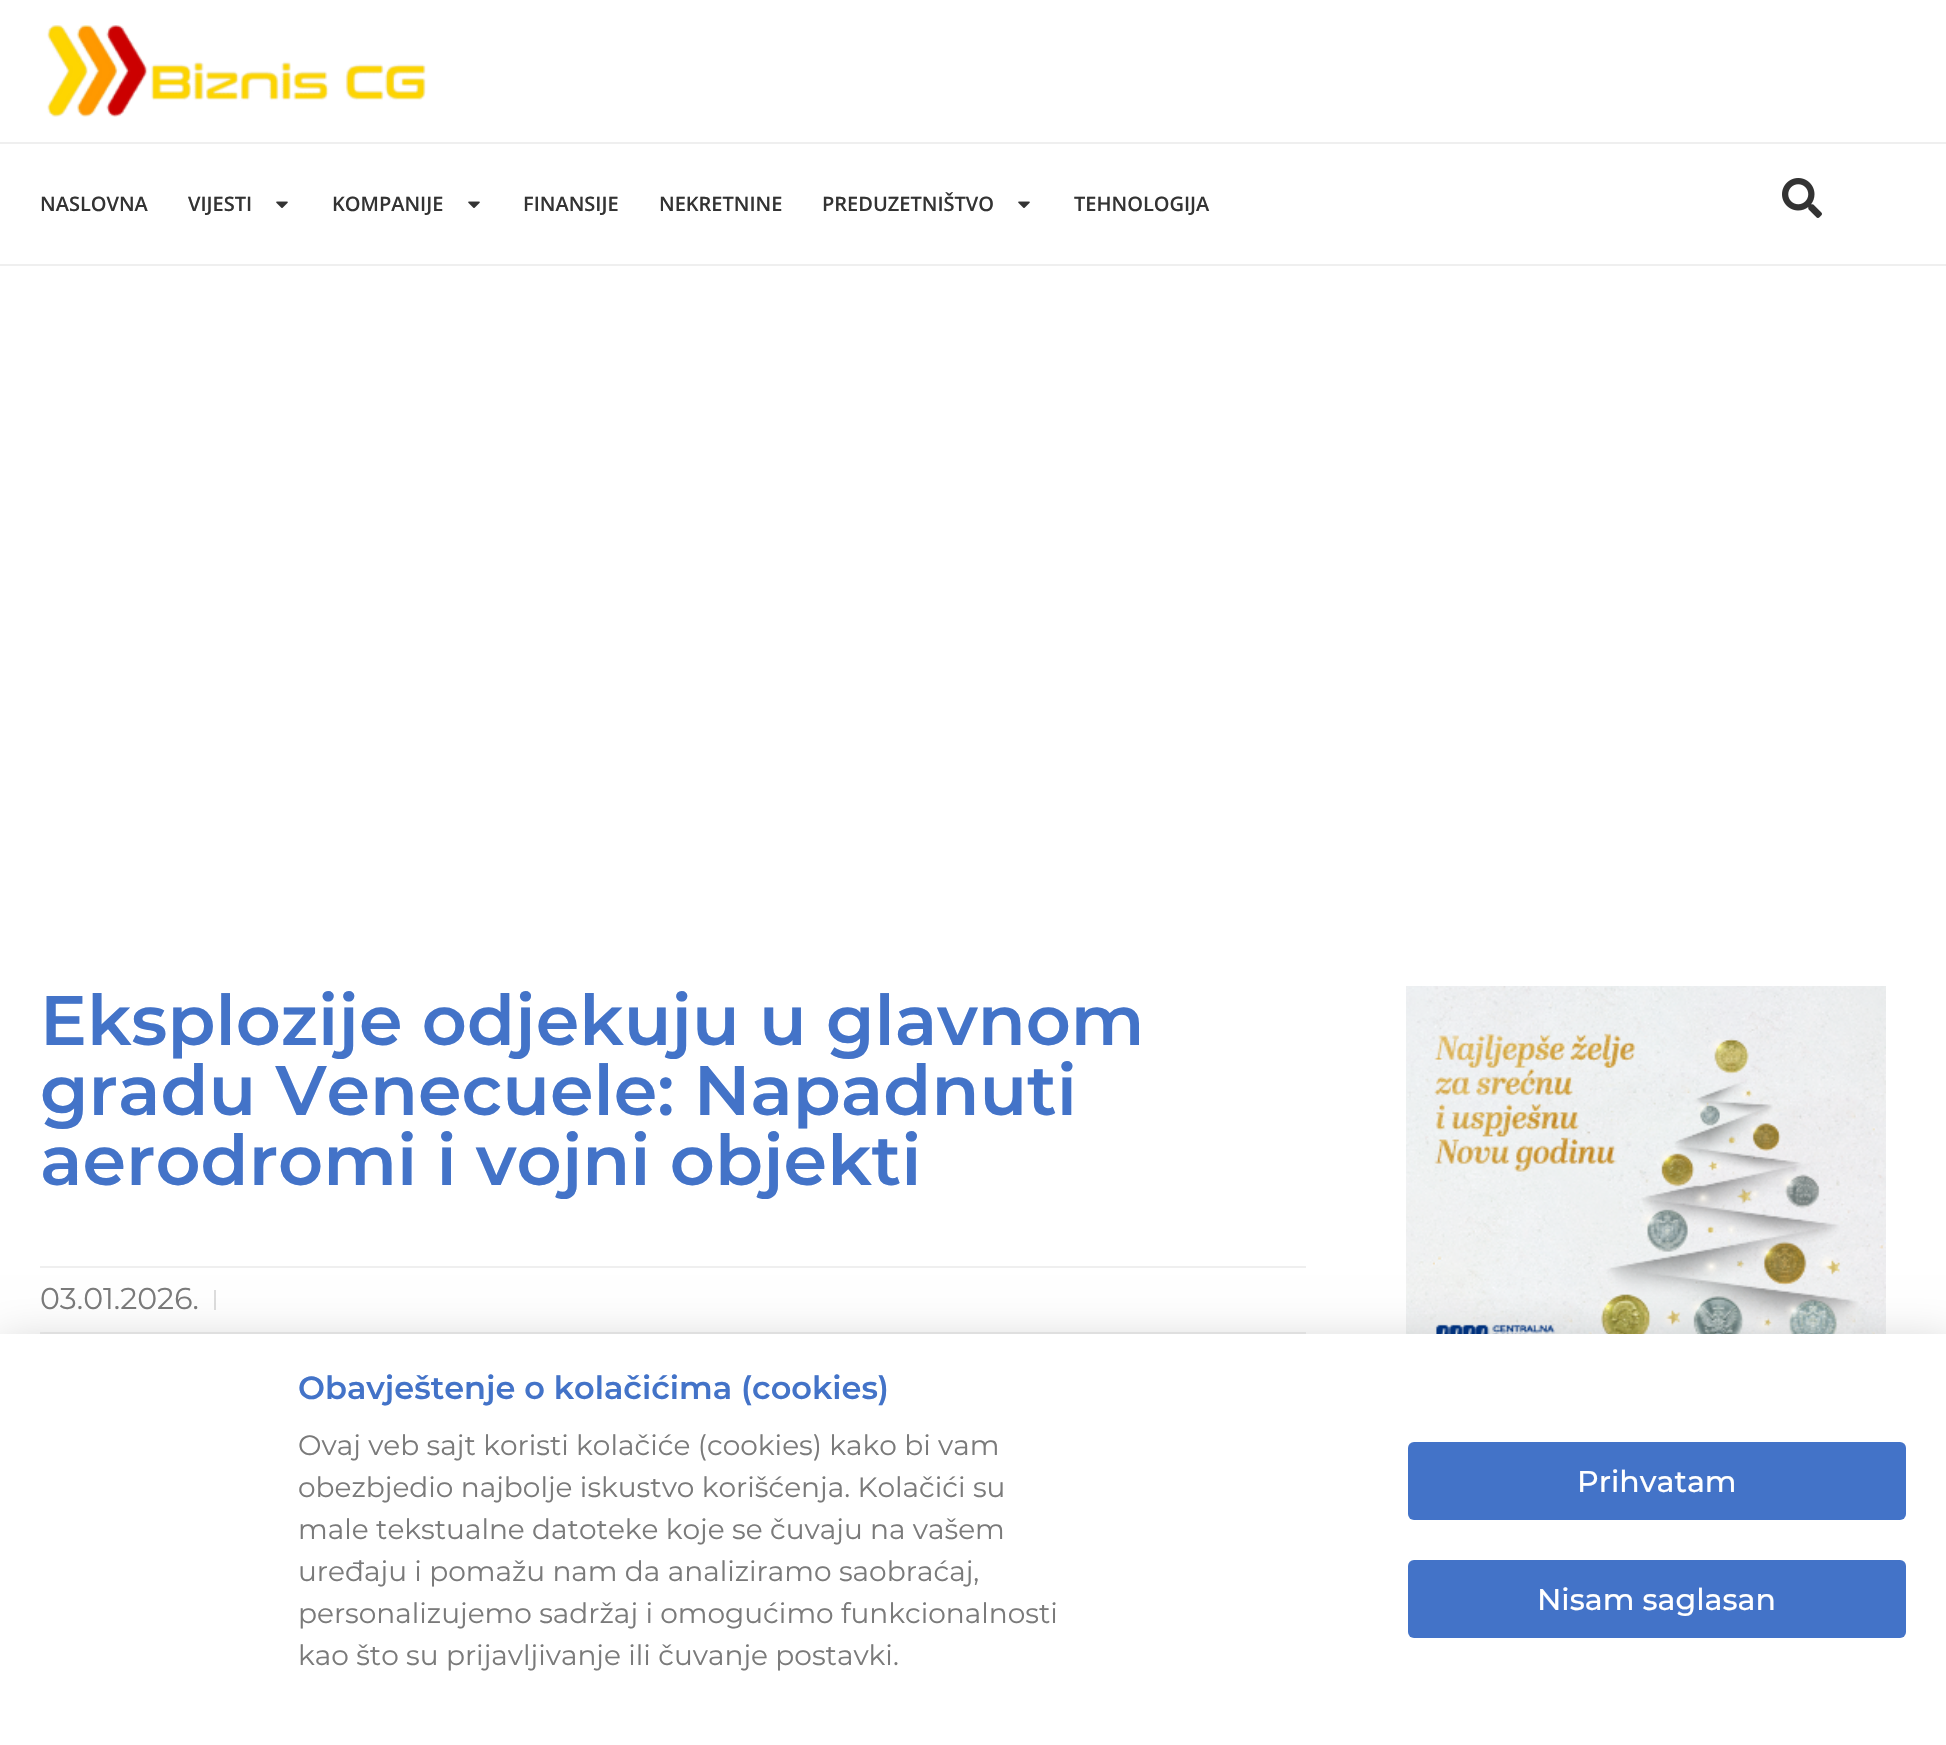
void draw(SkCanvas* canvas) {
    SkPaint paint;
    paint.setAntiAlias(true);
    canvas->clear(0xFFFFFFFF);
    paint.setColor(0xFFEFEFEF);
    canvas->drawRect(SkRect::MakeXYWH(0, 142, 1946, 2), paint);
    canvas->drawImageRect(SkImages::DeferredFromEncodedData(SkData::MakeFromFileName("img1.png")), SkRect::MakeXYWH(47, 25, 379, 92), SkSamplingOptions());
    canvas->drawRect(SkRect::MakeXYWH(0, 264, 1946, 2), paint);
    SkFont font1(fontMgr->matchFamilyStyle("Open Sans", SkFontStyle(600, SkFontStyle::kNormal_Width, SkFontStyle::kUpright_Slant)), 20);
    font1.setSubpixel(true);
    paint.setColor(0xFF333333);
    canvas->drawString("NASLOVNA", 40, 211, font1, paint);
    canvas->drawString("VIJESTI", 188, 211, font1, paint);
    canvas->drawImageRect(SkImages::DeferredFromEncodedData(SkData::MakeFromFileName("img2.png")), SkRect::MakeXYWH(276, 201, 12, 7), SkSamplingOptions());
    canvas->drawString("KOMPANIJE", 332, 211, font1, paint);
    canvas->drawImageRect(SkImages::DeferredFromEncodedData(SkData::MakeFromFileName("img2.png")), SkRect::MakeXYWH(468, 201, 12, 7), SkSamplingOptions());
    canvas->drawString("FINANSIJE", 523, 211, font1, paint);
    canvas->drawString("NEKRETNINE", 659, 211, font1, paint);
    canvas->drawString("PREDUZETNIŠTVO", 822, 211, font1, paint);
    canvas->drawImageRect(SkImages::DeferredFromEncodedData(SkData::MakeFromFileName("img2.png")), SkRect::MakeXYWH(1018, 201, 12, 7), SkSamplingOptions());
    canvas->drawString("TEHNOLOGIJA", 1074, 211, font1, paint);
    canvas->drawImageRect(SkImages::DeferredFromEncodedData(SkData::MakeFromFileName("img3.png")), SkRect::MakeXYWH(1782, 178, 40, 40), SkSamplingOptions());
    SkFont font2(fontMgr->matchFamilyStyle("Montserrat", SkFontStyle(600, SkFontStyle::kNormal_Width, SkFontStyle::kUpright_Slant)), 70);
    font2.setSubpixel(true);
    paint.setColor(0xFF4373C8);
    canvas->drawString("Eksplozije odjekuju u glavnom", 40, 1045, font2, paint);
    canvas->drawString("gradu Venecuele: Napadnuti", 40, 1115, font2, paint);
    canvas->drawString("aerodromi i vojni objekti", 40, 1185, font2, paint);
    paint.setColor(0xFFEFEFEF);
    canvas->drawRect(SkRect::MakeXYWH(40, 1266, 1266, 2), paint);
    canvas->drawRect(SkRect::MakeXYWH(40, 1332, 1266, 2), paint);
    SkFont font3(fontMgr->matchFamilyStyle("Montserrat", SkFontStyle::Normal()), 30);
    font3.setSubpixel(true);
    paint.setColor(0xFF7A7A7A);
    canvas->drawString("03.01.2026.", 40, 1309, font3, paint);
    paint.setColor(0xFFDDDDDD);
    canvas->drawRect(SkRect::MakeXYWH(214, 1290, 2, 20), paint);
    canvas->drawImageRect(SkImages::DeferredFromEncodedData(SkData::MakeFromFileName("img4.png")), SkRect::MakeXYWH(1406, 986, 480, 348), SkSamplingOptions());
    paint.setColor(0x33000000);
    paint.setMaskFilter(SkMaskFilter::MakeBlur(kNormal_SkBlurStyle, 23));
    canvas->drawRect(SkRect::MakeXYWH(-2, 1344, 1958, 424), paint);
    paint.setMaskFilter(nullptr);
    paint.setColor(0xFFFFFFFF);
    canvas->drawRect(SkRect::MakeXYWH(0, 1334, 1946, 411), paint);
    SkFont font4(fontMgr->matchFamilyStyle("Montserrat", SkFontStyle(600, SkFontStyle::kNormal_Width, SkFontStyle::kUpright_Slant)), 32);
    font4.setSubpixel(true);
    paint.setColor(0xFF4373C8);
    canvas->drawString("Obavještenje o kolačićima (cookies)", 298, 1399, font4, paint);
    SkFont font5(fontMgr->matchFamilyStyle("Montserrat", SkFontStyle::Normal()), 28);
    font5.setSubpixel(true);
    paint.setColor(0xFF7A7A7A);
    canvas->drawString("Ovaj veb sajt koristi kolačiće (cookies) kako bi vam", 298, 1455, font5, paint);
    canvas->drawString("obezbjedio najbolje iskustvo korišćenja. Kolačići su", 298, 1497, font5, paint);
    canvas->drawString("male tekstualne datoteke koje se čuvaju na vašem", 298, 1539, font5, paint);
    canvas->drawString("uređaju i pomažu nam da analiziramo saobraćaj,", 298, 1581, font5, paint);
    canvas->drawString("personalizujemo sadržaj i omogućimo funkcionalnosti", 298, 1623, font5, paint);
    canvas->drawString("kao što su prijavljivanje ili čuvanje postavki.", 298, 1665, font5, paint);
    paint.setColor(0xFF4373C8);
    canvas->drawRoundRect(SkRect::MakeXYWH(1408, 1442, 498, 78), 6, 6, paint);
    SkFont font6(fontMgr->matchFamilyStyle("Montserrat", SkFontStyle(500, SkFontStyle::kNormal_Width, SkFontStyle::kUpright_Slant)), 30);
    font6.setSubpixel(true);
    paint.setColor(0xFFFFFFFF);
    canvas->drawString("Prihvatam", 1577, 1492, font6, paint);
    paint.setColor(0xFF4373C8);
    canvas->drawRoundRect(SkRect::MakeXYWH(1408, 1560, 498, 78), 6, 6, paint);
    paint.setColor(0xFFFFFFFF);
    canvas->drawString("Nisam saglasan", 1537, 1610, font6, paint);
}
